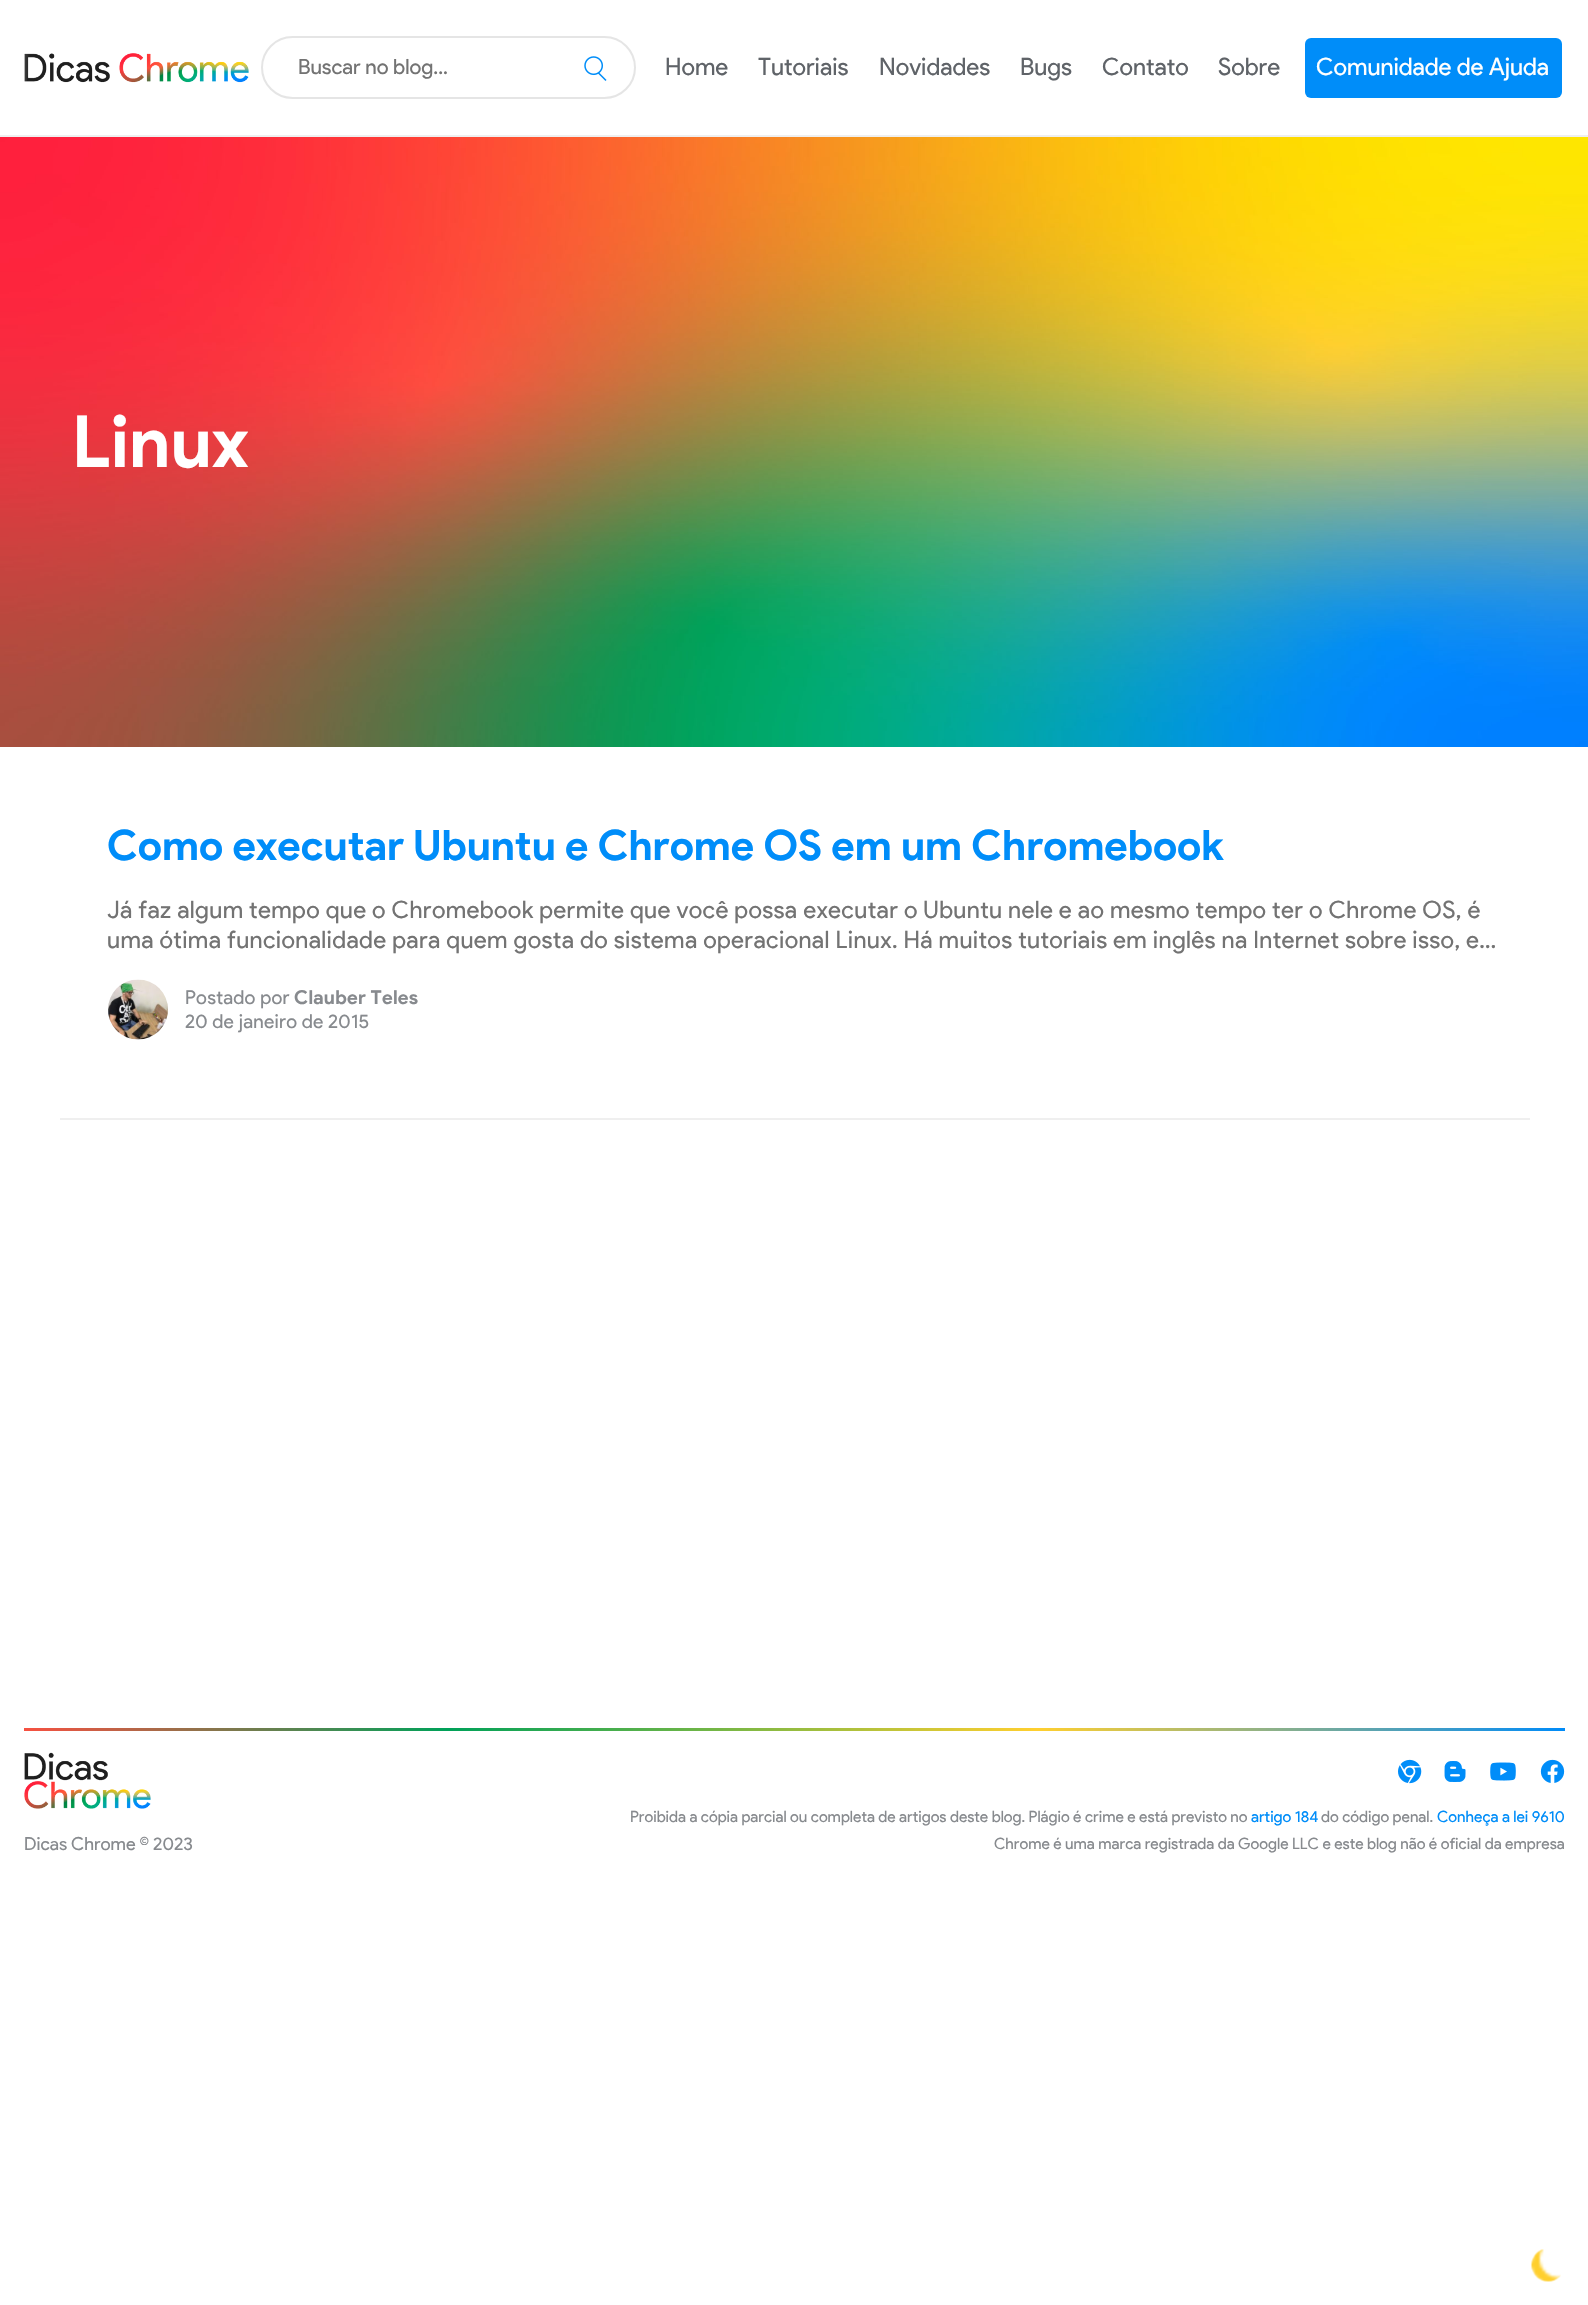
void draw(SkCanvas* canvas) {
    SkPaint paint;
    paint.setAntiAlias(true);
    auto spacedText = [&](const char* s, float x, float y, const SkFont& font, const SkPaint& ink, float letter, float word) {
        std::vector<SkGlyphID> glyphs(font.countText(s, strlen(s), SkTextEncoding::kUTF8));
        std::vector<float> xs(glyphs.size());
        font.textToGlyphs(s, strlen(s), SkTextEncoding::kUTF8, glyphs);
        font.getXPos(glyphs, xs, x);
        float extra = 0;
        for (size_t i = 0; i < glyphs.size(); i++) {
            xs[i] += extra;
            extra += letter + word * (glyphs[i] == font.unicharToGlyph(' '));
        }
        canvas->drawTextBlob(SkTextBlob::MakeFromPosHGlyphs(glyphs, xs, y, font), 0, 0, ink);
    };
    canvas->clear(0xFFFFFFFF);
    paint.setColor(0xFFEFEFEF);
    canvas->drawRect(SkRect::MakeXYWH(0, 135, 1588, 2), paint);
    canvas->drawImageRect(SkImages::DeferredFromEncodedData(SkData::MakeFromFileName("img1.png")), SkRect::MakeXYWH(24, 53, 225, 30), SkSamplingOptions());
    {
        const SkColor colors[] = {0x00FFFFFF, 0xE6FFFFFF, 0x00FFFFFF};
        const float stops[] = {0, 0.5f, 1};
        const SkPoint ends[] = {{-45, 68}, {30, 68}};
        paint.setShader(SkGradientShader::MakeLinear(ends, colors, stops, 3, SkTileMode::kClamp));
        paint.setAlpha(255);
    }
    canvas->drawPath(SkPathBuilder().moveTo(-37, 36).lineTo(38, 36).lineTo(22, 99).lineTo(-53, 99).close().detach(), paint);
    paint.setStyle(SkPaint::kStroke_Style);
    paint.setStrokeWidth(2);
    paint.setShader(nullptr);
    paint.setColor(0xFFE5E5E5);
    canvas->drawRoundRect(SkRect::MakeXYWH(262, 37, 373, 61), 30.5f, 30.5f, paint);
    SkFont font1(fontMgr->matchFamilyStyle("Product Sans", SkFontStyle::Normal()), 21);
    font1.setSubpixel(true);
    paint.setStyle(SkPaint::kFill_Style);
    paint.setColor(0xFF737373);
    canvas->drawString("Buscar no blog...", 298, 74, font1, paint);
    canvas->drawImageRect(SkImages::DeferredFromEncodedData(SkData::MakeFromFileName("img2.png")), SkRect::MakeXYWH(584, 56, 23, 25), SkSamplingOptions());
    SkFont font2(fontMgr->matchFamilyStyle("Product Sans", SkFontStyle::Normal()), 24);
    font2.setSubpixel(true);
    paint.setColor(0xFF5F6368);
    canvas->drawString("Home", 665, 75, font2, paint);
    canvas->drawString("Tutoriais", 758, 75, font2, paint);
    canvas->drawString("Novidades", 879, 75, font2, paint);
    canvas->drawString("Bugs", 1020, 75, font2, paint);
    canvas->drawString("Contato", 1102, 75, font2, paint);
    canvas->drawString("Sobre", 1218, 75, font2, paint);
    paint.setColor(0xFF008DF9);
    canvas->drawRoundRect(SkRect::MakeXYWH(1305, 38, 257, 60), 6, 6, paint);
    paint.setColor(0xFFFFFFFF);
    canvas->drawString("Comunidade de Ajuda", 1316, 75, font2, paint);
    canvas->drawImageRect(SkImages::DeferredFromEncodedData(SkData::MakeFromFileName("img3.png")), SkRect::MakeXYWH(0, 137, 1588, 610), SkSamplingOptions());
    SkFont font3(fontMgr->matchFamilyStyle("Product Sans", SkFontStyle::Bold()), 72);
    font3.setSubpixel(true);
    canvas->drawString("Linux", 72, 467, font3, paint);
    paint.setColor(0xFFEFEFEF);
    canvas->drawRect(SkRect::MakeXYWH(60, 1118, 1470, 2), paint);
    SkFont font4(fontMgr->matchFamilyStyle("Product Sans", SkFontStyle::Bold()), 42);
    font4.setSubpixel(true);
    paint.setColor(0xFF008DF9);
    canvas->drawString("Como executar Ubuntu e Chrome OS em um Chromebook", 107, 860, font4, paint);
    paint.setColor(0xFF737373);
    spacedText("Já faz algum tempo que o Chromebook permite que você possa executar o Ubuntu nele e ao mesmo tempo ter o Chrome OS, é", 107, 918, font2, paint, 0.38f, 0);
    spacedText("uma ótima funcionalidade para quem gosta do sistema operacional Linux. Há muitos tutoriais em inglês na Internet sobre isso, e…", 107, 948, font2, paint, 0.38f, 0);
    canvas->drawImageRect(SkImages::DeferredFromEncodedData(SkData::MakeFromFileName("img4.png")), SkRect::MakeXYWH(108, 979, 60, 61), SkSamplingOptions());
    SkFont font5(fontMgr->matchFamilyStyle("Product Sans", SkFontStyle::Normal()), 19.25f);
    font5.setSubpixel(true);
    paint.setColor(0xFF878A8E);
    spacedText("Postado por", 185, 1004, font5, paint, 0.25f, 0);
    SkFont font6(fontMgr->matchFamilyStyle("Product Sans", SkFontStyle::Bold()), 19.25f);
    font6.setSubpixel(true);
    spacedText("Clauber Teles", 294, 1004, font6, paint, 0.25f, 0);
    spacedText("20 de janeiro de 2015", 185, 1028, font5, paint, 0.25f, 0);
    {
        const SkColor colors[] = {0xFFFE4E40, 0xFF00A159, 0xFFFFCF2F, 0xFF008BF8};
        const float stops[] = {0, 0.28f, 0.66f, 1};
        const SkPoint ends[] = {{12, 1730}, {1565, 1730}};
        paint.setShader(SkGradientShader::MakeLinear(ends, colors, stops, 4, SkTileMode::kClamp));
        paint.setAlpha(255);
    }
    canvas->drawRect(SkRect::MakeXYWH(24, 1728, 1541, 3), paint);
    canvas->drawImageRect(SkImages::DeferredFromEncodedData(SkData::MakeFromFileName("img5.png")), SkRect::MakeXYWH(1398, 1759, 24, 25), SkSamplingOptions());
    canvas->drawImageRect(SkImages::DeferredFromEncodedData(SkData::MakeFromFileName("img6.png")), SkRect::MakeXYWH(1444, 1761, 22, 21), SkSamplingOptions());
    canvas->drawImageRect(SkImages::DeferredFromEncodedData(SkData::MakeFromFileName("img7.png")), SkRect::MakeXYWH(1490, 1762, 26, 19), SkSamplingOptions());
    canvas->drawImageRect(SkImages::DeferredFromEncodedData(SkData::MakeFromFileName("img8.png")), SkRect::MakeXYWH(1540, 1759, 25, 24), SkSamplingOptions());
    canvas->drawImageRect(SkImages::DeferredFromEncodedData(SkData::MakeFromFileName("img9.png")), SkRect::MakeXYWH(24, 1752, 127, 57), SkSamplingOptions());
    SkFont font7(fontMgr->matchFamilyStyle("Product Sans", SkFontStyle::Normal()), 18);
    font7.setSubpixel(true);
    paint.setShader(nullptr);
    paint.setColor(0xFF878A8E);
    canvas->drawString("Dicas Chrome © 2023", 24, 1850, font7, paint);
    SkFont font8(fontMgr->matchFamilyStyle("Product Sans", SkFontStyle::Normal()), 15.6f);
    font8.setSubpixel(true);
    canvas->drawString("Proibida a cópia parcial ou completa de artigos deste blog. Plágio é crime e está previsto no", 630, 1822, font8, paint);
    paint.setColor(0xFF008DF9);
    canvas->drawString("artigo 184", 1251, 1822, font8, paint);
    paint.setColor(0xFF878A8E);
    canvas->drawString("do código penal.", 1321, 1822, font8, paint);
    paint.setColor(0xFF008DF9);
    canvas->drawString("Conheça a lei 9610", 1437, 1822, font8, paint);
    paint.setColor(0xFF878A8E);
    canvas->drawString("Chrome é uma marca registrada da Google LLC e este blog não é oficial da empresa", 994, 1849, font8, paint);
    canvas->drawImageRect(SkImages::DeferredFromEncodedData(SkData::MakeFromFileName("img10.png")), SkRect::MakeXYWH(1531, 2249, 30, 33), SkSamplingOptions());
}
